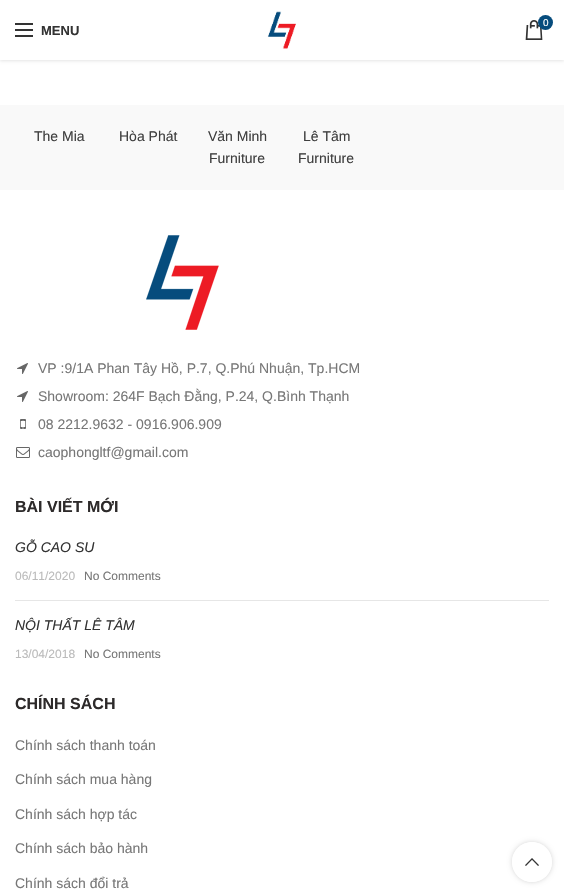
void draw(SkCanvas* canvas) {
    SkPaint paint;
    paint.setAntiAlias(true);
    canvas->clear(0xFFFFFFFF);
    paint.setColor(0x1A000000);
    paint.setMaskFilter(SkMaskFilter::MakeBlur(kNormal_SkBlurStyle, 1.5f));
    canvas->drawRect(SkRect::MakeXYWH(0, 1, 564, 60), paint);
    paint.setMaskFilter(nullptr);
    paint.setColor(0xFFFFFFFF);
    canvas->drawRect(SkRect::MakeXYWH(0, 0, 564, 60), paint);
    canvas->drawImageRect(SkImages::DeferredFromEncodedData(SkData::MakeFromFileName("img1.png")), SkRect::MakeXYWH(267, 11, 29, 38), SkSamplingOptions());
    canvas->drawImageRect(SkImages::DeferredFromEncodedData(SkData::MakeFromFileName("img2.png")), SkRect::MakeXYWH(525, 20, 18, 20), SkSamplingOptions());
    paint.setColor(0xFF064C7D);
    canvas->drawCircle(545.5f, 22.5f, 7.5f, paint);
    SkFont font1(fontMgr->matchFamilyStyle("Liberation Sans", SkFontStyle::Normal()), 10);
    font1.setSubpixel(true);
    paint.setColor(0xFFFFFFFF);
    canvas->drawString("0", 543, 26, font1, paint);
    paint.setColor(0xFF333333);
    canvas->drawRect(SkRect::MakeXYWH(15, 29, 18, 2), paint);
    canvas->drawRect(SkRect::MakeXYWH(15, 23, 18, 2), paint);
    canvas->drawRect(SkRect::MakeXYWH(15, 35, 18, 2), paint);
    SkFont font2(fontMgr->matchFamilyStyle("Liberation Sans", SkFontStyle::Bold()), 13);
    font2.setSubpixel(true);
    canvas->drawString("MENU", 41, 35, font2, paint);
    paint.setColor(0xFFF9F9F9);
    canvas->drawRect(SkRect::MakeXYWH(0, 105, 564, 85), paint);
    SkFont font3(fontMgr->matchFamilyStyle("Liberation Sans", SkFontStyle::Normal()), 14);
    font3.setSubpixel(true);
    paint.setColor(0xFF3F3F3F);
    canvas->drawString("The Mia", 34, 141, font3, paint);
    canvas->drawString("Hòa Phát", 119, 141, font3, paint);
    canvas->drawString("Văn Minh", 208, 141, font3, paint);
    canvas->drawString("Furniture", 209, 163, font3, paint);
    canvas->drawString("Lê Tâm", 303, 141, font3, paint);
    canvas->drawString("Furniture", 298, 163, font3, paint);
    canvas->drawImageRect(SkImages::DeferredFromEncodedData(SkData::MakeFromFileName("img3.png")), SkRect::MakeXYWH(146, 235, 73, 95), SkSamplingOptions());
    canvas->drawImageRect(SkImages::DeferredFromEncodedData(SkData::MakeFromFileName("img4.png")), SkRect::MakeXYWH(17, 363, 11, 11), SkSamplingOptions());
    paint.setColor(0xFF777777);
    canvas->drawString("VP :9/1A Phan Tây Hồ, P.7, Q.Phú Nhuận, Tp.HCM", 38, 373, font3, paint);
    canvas->drawImageRect(SkImages::DeferredFromEncodedData(SkData::MakeFromFileName("img4.png")), SkRect::MakeXYWH(17, 391, 11, 11), SkSamplingOptions());
    canvas->drawString("Showroom: 264F Bạch Đằng, P.24, Q.Bình Thạnh", 38, 401, font3, paint);
    canvas->drawImageRect(SkImages::DeferredFromEncodedData(SkData::MakeFromFileName("img5.png")), SkRect::MakeXYWH(20, 419, 6, 10), SkSamplingOptions());
    canvas->drawString("08 2212.9632 - 0916.906.909", 38, 429, font3, paint);
    canvas->drawImageRect(SkImages::DeferredFromEncodedData(SkData::MakeFromFileName("img6.png")), SkRect::MakeXYWH(16, 447, 14, 11), SkSamplingOptions());
    canvas->drawString("caophongltf@gmail.com", 38, 457, font3, paint);
    SkFont font4(fontMgr->matchFamilyStyle("Liberation Sans", SkFontStyle::Bold()), 16);
    font4.setSubpixel(true);
    paint.setColor(0xFF2D2A2A);
    canvas->drawString("BÀI VIẾT MỚI", 15, 512, font4, paint);
    paint.setColor(0xFFE6E6E6);
    canvas->drawRect(SkRect::MakeXYWH(15, 600, 534, 1), paint);
    SkFont font5(fontMgr->matchFamilyStyle("Liberation Sans", SkFontStyle::Italic()), 14);
    font5.setSubpixel(true);
    paint.setColor(0xFF333333);
    canvas->drawString("GỖ CAO SU", 15, 552, font5, paint);
    SkFont font6(fontMgr->matchFamilyStyle("Liberation Sans", SkFontStyle::Normal()), 12);
    font6.setSubpixel(true);
    paint.setColor(0xFFBBBBBB);
    canvas->drawString("06/11/2020", 15, 580, font6, paint);
    paint.setColor(0xFF777777);
    canvas->drawString("No Comments", 84, 580, font6, paint);
    paint.setColor(0xFF333333);
    canvas->drawString("NỘI THẤT LÊ TÂM", 15, 630, font5, paint);
    paint.setColor(0xFFBBBBBB);
    canvas->drawString("13/04/2018", 15, 658, font6, paint);
    paint.setColor(0xFF777777);
    canvas->drawString("No Comments", 84, 658, font6, paint);
    paint.setColor(0xFF2D2A2A);
    canvas->drawString("CHÍNH SÁCH", 15, 709, font4, paint);
    paint.setColor(0xFF777777);
    canvas->drawString("Chính sách thanh toán", 15, 750, font3, paint);
    canvas->drawString("Chính sách mua hàng", 15, 784, font3, paint);
    canvas->drawString("Chính sách hợp tác", 15, 819, font3, paint);
    canvas->drawString("Chính sách bảo hành", 15, 853, font3, paint);
    canvas->drawString("Chính sách đổi trả", 15, 888, font3, paint);
    canvas->save();
    canvas->clipPath(SkPathBuilder(SkPathFillType::kEvenOdd).moveTo(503, 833).lineTo(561, 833).lineTo(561, 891).lineTo(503, 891).close().moveTo(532, 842).cubicTo(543, 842, 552, 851, 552, 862).cubicTo(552, 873, 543, 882, 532, 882).cubicTo(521, 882, 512, 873, 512, 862).cubicTo(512, 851, 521, 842, 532, 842).close().detach(), true);
    paint.setColor(0x2B000000);
    paint.setMaskFilter(SkMaskFilter::MakeBlur(kNormal_SkBlurStyle, 2.5f));
    canvas->drawRoundRect(SkRect::MakeXYWH(512, 842, 40, 40), 20, 20, paint);
    paint.setMaskFilter(nullptr);
    canvas->restore();
    paint.setColor(0xE6FFFFFF);
    canvas->drawCircle(532, 862, 20, paint);
    canvas->drawImageRect(SkImages::DeferredFromEncodedData(SkData::MakeFromFileName("img7.png")), SkRect::MakeXYWH(525, 858, 14, 8), SkSamplingOptions());
}
